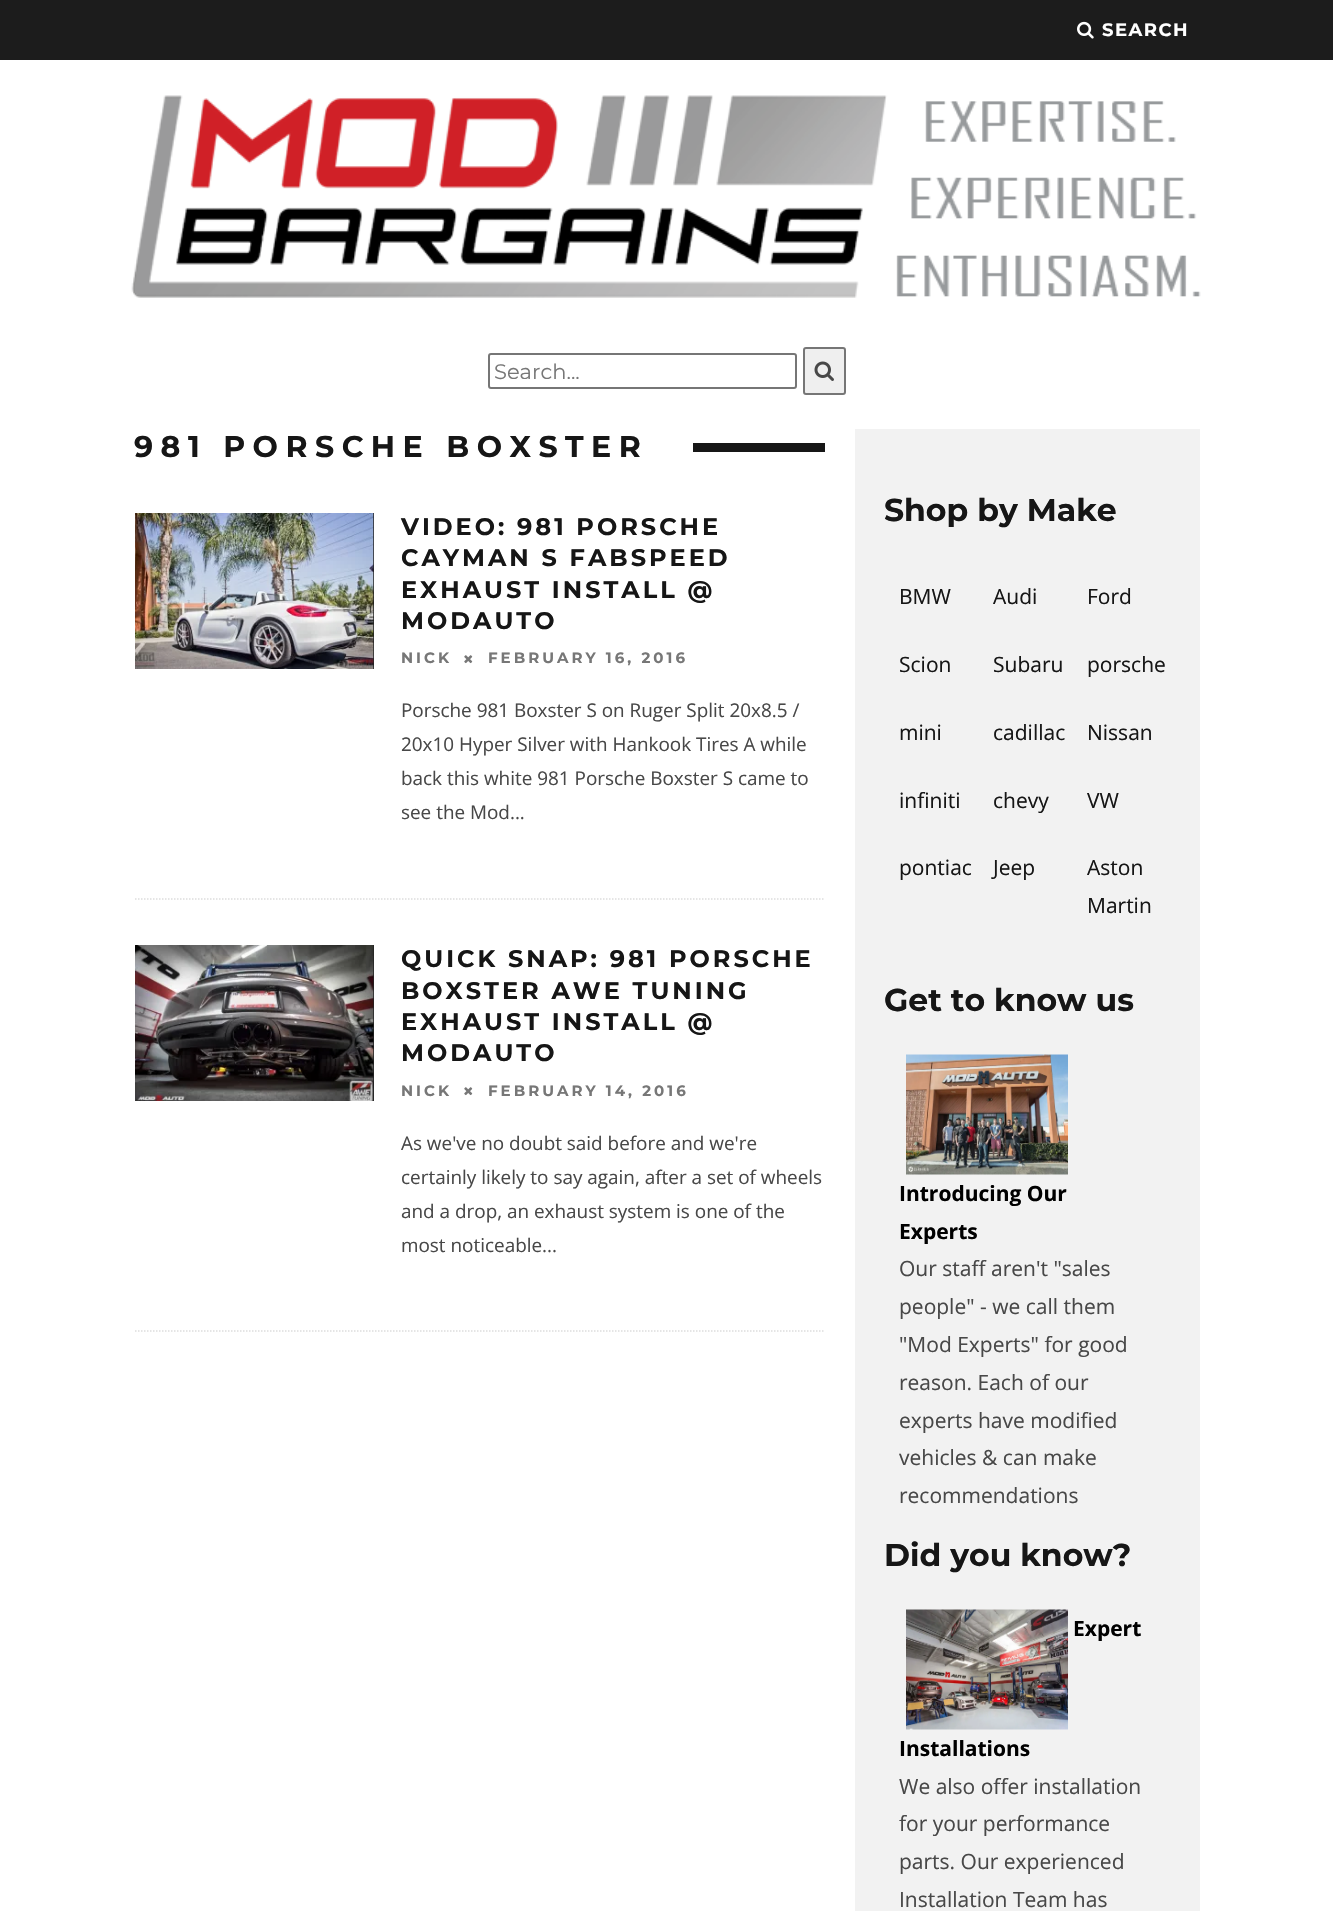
void draw(SkCanvas* canvas) {
    SkPaint paint;
    paint.setAntiAlias(true);
    auto spacedText = [&](const char* s, float x, float y, const SkFont& font, const SkPaint& ink, float letter, float word) {
        std::vector<SkGlyphID> glyphs(font.countText(s, strlen(s), SkTextEncoding::kUTF8));
        std::vector<float> xs(glyphs.size());
        font.textToGlyphs(s, strlen(s), SkTextEncoding::kUTF8, glyphs);
        font.getXPos(glyphs, xs, x);
        float extra = 0;
        for (size_t i = 0; i < glyphs.size(); i++) {
            xs[i] += extra;
            extra += letter + word * (glyphs[i] == font.unicharToGlyph(' '));
        }
        canvas->drawTextBlob(SkTextBlob::MakeFromPosHGlyphs(glyphs, xs, y, font), 0, 0, ink);
    };
    canvas->clear(0xFFFFFFFF);
    paint.setColor(0xFF1C1C1C);
    canvas->drawRect(SkRect::MakeXYWH(0, 0, 1333, 60), paint);
    canvas->drawImageRect(SkImages::DeferredFromEncodedData(SkData::MakeFromFileName("img1.png")), SkRect::MakeXYWH(1077, 21, 17, 18), SkSamplingOptions());
    SkFont font1(fontMgr->matchFamilyStyle("Montserrat", SkFontStyle::Bold()), 18);
    font1.setSubpixel(true);
    paint.setColor(0xFFFFFFFF);
    spacedText("SEARCH", 1102, 36, font1, paint, 1.5f, 0);
    canvas->drawImageRect(SkImages::DeferredFromEncodedData(SkData::MakeFromFileName("img2.png")), SkRect::MakeXYWH(131, 95, 1070, 203), SkSamplingOptions());
    paint.setStyle(SkPaint::kStroke_Style);
    paint.setStrokeWidth(2);
    paint.setColor(0xFF767676);
    canvas->drawRoundRect(SkRect::MakeXYWH(489, 354, 307, 34), 2, 2, paint);
    SkFont font2(fontMgr->matchFamilyStyle("Montserrat", SkFontStyle::Normal()), 21);
    font2.setSubpixel(true);
    paint.setStyle(SkPaint::kFill_Style);
    paint.setColor(0xFF777777);
    canvas->drawString("Search...", 494, 379, font2, paint);
    paint.setColor(0xFFEFEFEF);
    canvas->drawRoundRect(SkRect::MakeXYWH(804, 348, 41, 46), 2, 2, paint);
    paint.setStyle(SkPaint::kStroke_Style);
    paint.setColor(0xFF767676);
    canvas->drawRoundRect(SkRect::MakeXYWH(804, 348, 41, 46), 2, 2, paint);
    canvas->drawImageRect(SkImages::DeferredFromEncodedData(SkData::MakeFromFileName("img3.png")), SkRect::MakeXYWH(814, 361, 20, 20), SkSamplingOptions());
    SkFont font3(fontMgr->matchFamilyStyle("Montserrat", SkFontStyle::Bold()), 30);
    font3.setSubpixel(true);
    paint.setStyle(SkPaint::kFill_Style);
    paint.setColor(0xFF161616);
    spacedText("981 PORSCHE BOXSTER", 134, 457, font3, paint, 7.5f, 0);
    canvas->drawRect(SkRect::MakeXYWH(693, 443, 132, 9), paint);
    paint.setStyle(SkPaint::kStroke_Style);
    paint.setStrokeWidth(1.5f);
    paint.setColor(0xFFDDDDDD);
    paint.setPathEffect(SkDashPathEffect::Make({{1.5f, 1.5f}}, 0));
    canvas->drawPath(SkPathBuilder().moveTo(135, 899).lineTo(825, 899).detach(), paint);
    paint.setPathEffect(nullptr);
    paint.setStyle(SkPaint::kFill_Style);
    paint.setColor(0xFF222222);
    canvas->drawRect(SkRect::MakeXYWH(373, 513, 1, 156), paint);
    canvas->drawImageRect(SkImages::DeferredFromEncodedData(SkData::MakeFromFileName("img4.png")), SkRect::MakeXYWH(135, 513, 239, 156), SkSamplingOptions());
    SkFont font4(fontMgr->matchFamilyStyle("Montserrat", SkFontStyle::Bold()), 24);
    font4.setSubpixel(true);
    paint.setColor(0xFF161616);
    spacedText("VIDEO: 981 PORSCHE", 401, 535, font4, paint, 3, 0);
    spacedText("CAYMAN S FABSPEED", 401, 566, font4, paint, 3, 0);
    spacedText("EXHAUST INSTALL @", 401, 598, font4, paint, 3, 0);
    spacedText("MODAUTO", 401, 629, font4, paint, 3, 0);
    SkFont font5(fontMgr->matchFamilyStyle("Montserrat", SkFontStyle::Bold()), 15);
    font5.setSubpixel(true);
    paint.setColor(0xFF777777);
    spacedText("NICK", 401, 663, font5, paint, 3, 0);
    canvas->drawImageRect(SkImages::DeferredFromEncodedData(SkData::MakeFromFileName("img5.png")), SkRect::MakeXYWH(464, 655, 9, 9), SkSamplingOptions());
    spacedText("FEBRUARY 16, 2016", 488, 663, font5, paint, 3, 0);
    SkFont font6(fontMgr->matchFamilyStyle("Open Sans", SkFontStyle::Normal()), 18.9f);
    font6.setSubpixel(true);
    paint.setColor(0xFF484848);
    canvas->drawString("Porsche 981 Boxster S on Ruger Split 20x8.5 /", 401, 717, font6, paint);
    canvas->drawString("20x10 Hyper Silver with Hankook Tires A while", 401, 751, font6, paint);
    canvas->drawString("back this white 981 Porsche Boxster S came to", 401, 785, font6, paint);
    canvas->drawString("see the Mod...", 401, 819, font6, paint);
    paint.setStyle(SkPaint::kStroke_Style);
    paint.setColor(0xFFDDDDDD);
    paint.setPathEffect(SkDashPathEffect::Make({{1.5f, 1.5f}}, 0));
    canvas->drawPath(SkPathBuilder().moveTo(135, 1331).lineTo(825, 1331).detach(), paint);
    paint.setPathEffect(nullptr);
    paint.setStyle(SkPaint::kFill_Style);
    paint.setColor(0xFF222222);
    canvas->drawRect(SkRect::MakeXYWH(373, 945, 1, 156), paint);
    canvas->drawImageRect(SkImages::DeferredFromEncodedData(SkData::MakeFromFileName("img6.png")), SkRect::MakeXYWH(135, 945, 239, 156), SkSamplingOptions());
    paint.setColor(0xFF161616);
    spacedText("QUICK SNAP: 981 PORSCHE", 401, 967, font4, paint, 3, 0);
    spacedText("BOXSTER AWE TUNING", 401, 999, font4, paint, 3, 0);
    spacedText("EXHAUST INSTALL @", 401, 1030, font4, paint, 3, 0);
    spacedText("MODAUTO", 401, 1061, font4, paint, 3, 0);
    paint.setColor(0xFF777777);
    spacedText("NICK", 401, 1096, font5, paint, 3, 0);
    canvas->drawImageRect(SkImages::DeferredFromEncodedData(SkData::MakeFromFileName("img5.png")), SkRect::MakeXYWH(464, 1087, 9, 9), SkSamplingOptions());
    spacedText("FEBRUARY 14, 2016", 488, 1096, font5, paint, 3, 0);
    paint.setColor(0xFF484848);
    canvas->drawString("As we've no doubt said before and we're", 401, 1150, font6, paint);
    canvas->drawString("certainly likely to say again, after a set of wheels", 401, 1184, font6, paint);
    canvas->drawString("and a drop, an exhaust system is one of the", 401, 1218, font6, paint);
    canvas->drawString("most noticeable...", 401, 1252, font6, paint);
    paint.setColor(0xFFF2F2F2);
    canvas->drawRect(SkRect::MakeXYWH(855, 429, 345, 1482), paint);
    SkFont font7(fontMgr->matchFamilyStyle("Montserrat", SkFontStyle::Bold()), 31.5f);
    font7.setSubpixel(true);
    paint.setColor(0xFF161616);
    canvas->drawString("Shop by Make", 884, 521, font7, paint);
    SkFont font8(fontMgr->matchFamilyStyle("Open Sans", SkFontStyle::Normal()), 21);
    font8.setSubpixel(true);
    canvas->drawString("BMW", 899, 604, font8, paint);
    canvas->drawString("Audi", 993, 604, font8, paint);
    canvas->drawString("Ford", 1087, 604, font8, paint);
    canvas->drawString("Scion", 899, 672, font8, paint);
    canvas->drawString("Subaru", 993, 672, font8, paint);
    canvas->drawString("porsche", 1087, 672, font8, paint);
    canvas->drawString("mini", 899, 740, font8, paint);
    canvas->drawString("cadillac", 993, 740, font8, paint);
    canvas->drawString("Nissan", 1087, 740, font8, paint);
    canvas->drawString("infiniti", 899, 808, font8, paint);
    canvas->drawString("chevy", 993, 808, font8, paint);
    canvas->drawString("VW", 1087, 808, font8, paint);
    canvas->drawString("pontiac", 899, 875, font8, paint);
    canvas->drawString("Jeep", 993, 875, font8, paint);
    canvas->drawString("Aston", 1087, 875, font8, paint);
    canvas->drawString("Martin", 1087, 913, font8, paint);
    canvas->drawString("Get to know us", 884, 1011, font7, paint);
    canvas->drawImageRect(SkImages::DeferredFromEncodedData(SkData::MakeFromFileName("img7.png")), SkRect::MakeXYWH(906, 1054, 162, 121), SkSamplingOptions());
    SkFont font9(fontMgr->matchFamilyStyle("Open Sans", SkFontStyle::Bold()), 21);
    font9.setSubpixel(true);
    paint.setColor(0xFF000000);
    canvas->drawString("Introducing Our", 899, 1201, font9, paint);
    canvas->drawString("Experts", 899, 1239, font9, paint);
    paint.setColor(0xFF484848);
    canvas->drawString("Our staff aren't \"sales", 899, 1276, font8, paint);
    canvas->drawString("people\" - we call them", 899, 1314, font8, paint);
    canvas->drawString("\"Mod Experts\" for good", 899, 1352, font8, paint);
    canvas->drawString("reason. Each of our", 899, 1390, font8, paint);
    canvas->drawString("experts have modified", 899, 1428, font8, paint);
    canvas->drawString("vehicles & can make", 899, 1465, font8, paint);
    canvas->drawString("recommendations", 899, 1503, font8, paint);
    paint.setColor(0xFF161616);
    canvas->drawString("Did you know?", 884, 1566, font7, paint);
    canvas->drawImageRect(SkImages::DeferredFromEncodedData(SkData::MakeFromFileName("img8.png")), SkRect::MakeXYWH(906, 1609, 162, 121), SkSamplingOptions());
    paint.setColor(0xFF000000);
    canvas->drawString("Expert", 1073, 1636, font9, paint);
    canvas->drawString("Installations", 899, 1756, font9, paint);
    paint.setColor(0xFF484848);
    canvas->drawString("We also offer installation", 899, 1794, font8, paint);
    canvas->drawString("for your performance", 899, 1831, font8, paint);
    canvas->drawString("parts. Our experienced", 899, 1869, font8, paint);
    canvas->drawString("Installation Team has", 899, 1907, font8, paint);
}
